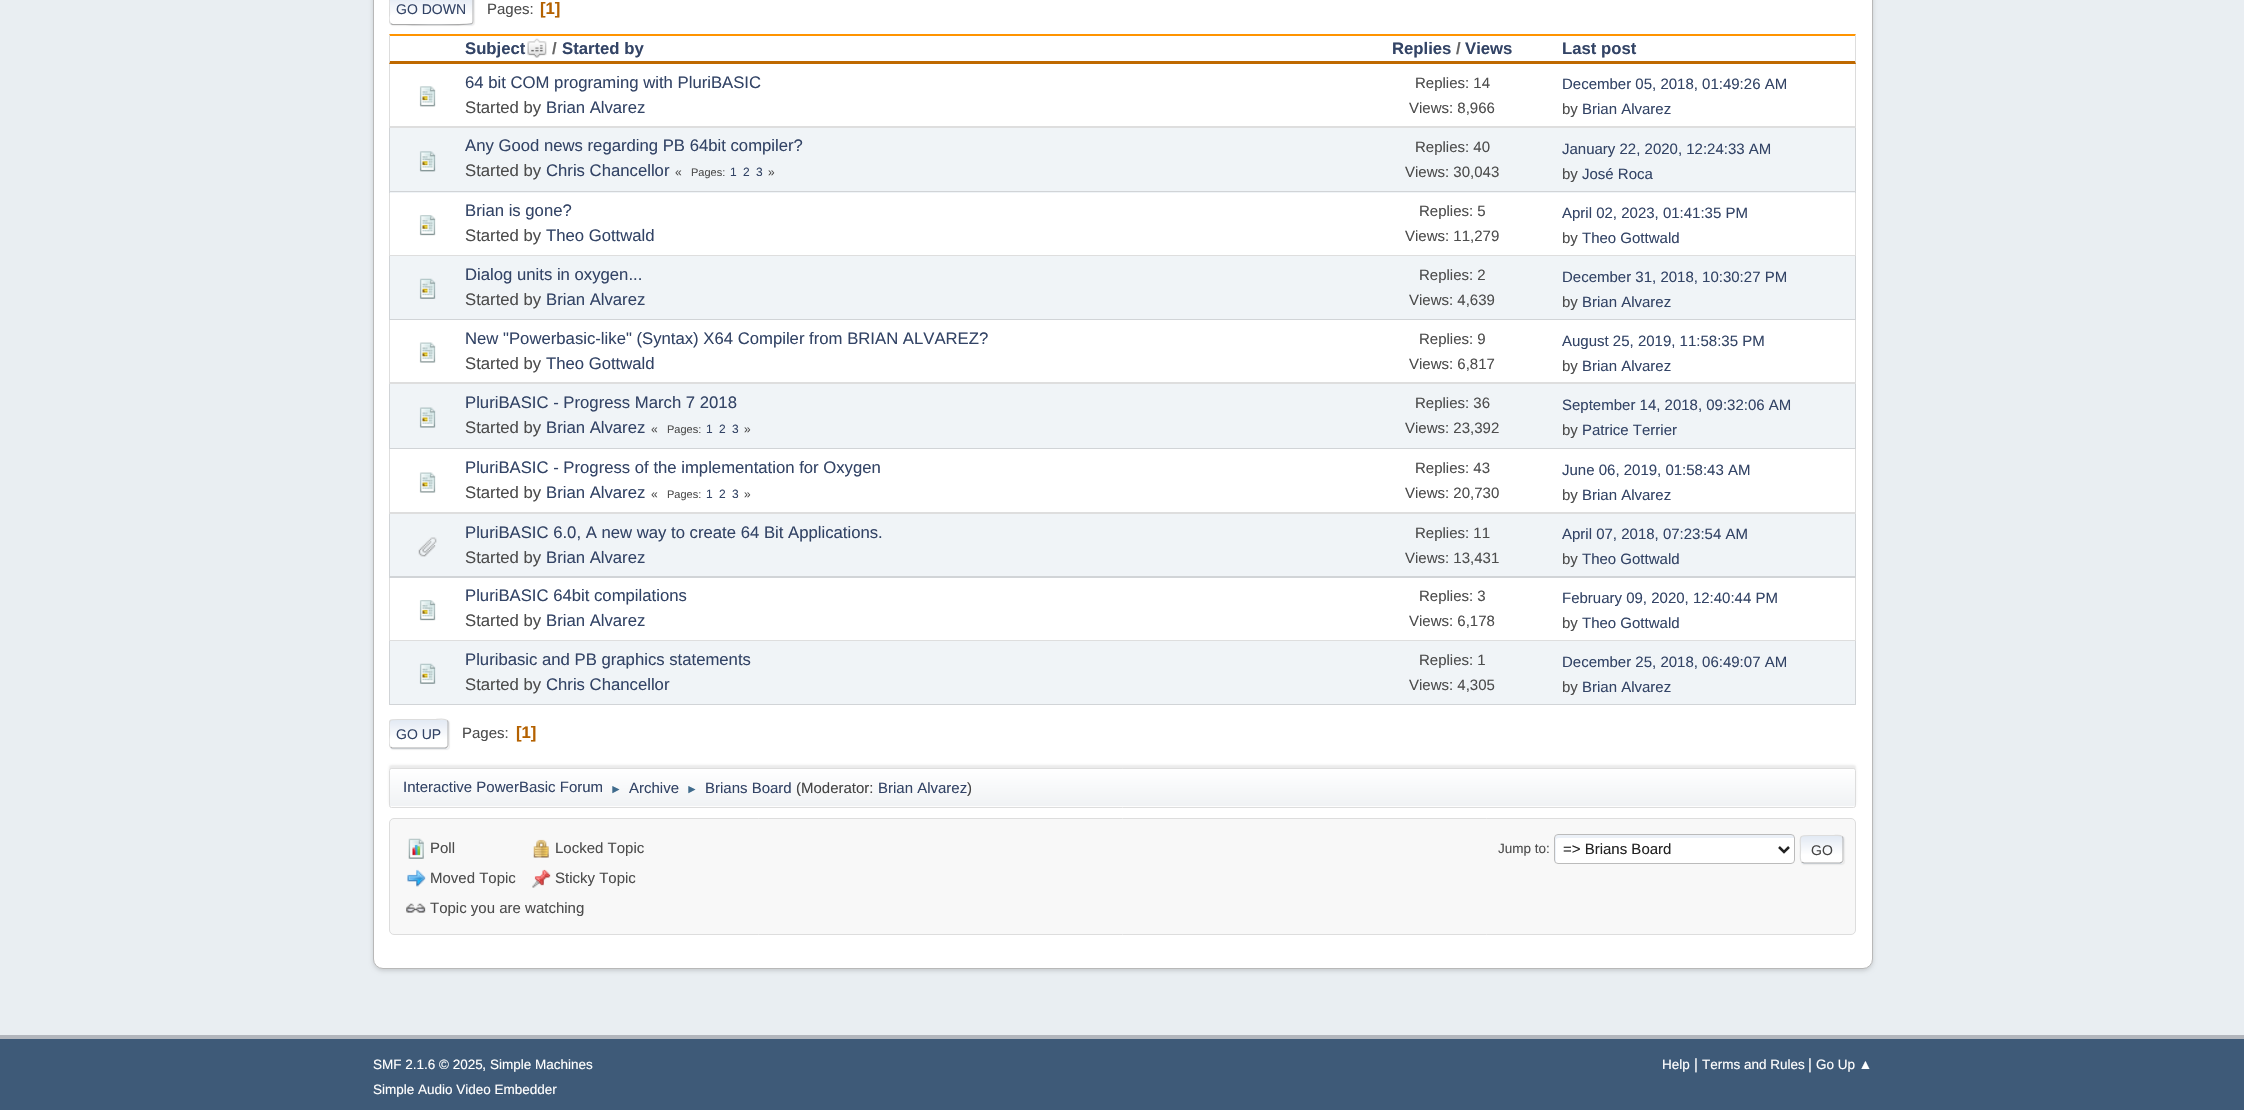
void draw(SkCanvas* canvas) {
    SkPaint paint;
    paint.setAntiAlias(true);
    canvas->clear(0xFFE9EEF2);
    paint.setColor(0x24000000);
    paint.setMaskFilter(SkMaskFilter::MakeBlur(kNormal_SkBlurStyle, 2));
    canvas->drawRoundRect(SkRect::MakeXYWH(373, -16, 1500, 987), 10, 10, paint);
    paint.setMaskFilter(nullptr);
    paint.setColor(0xFFFFFFFF);
    canvas->drawRoundRect(SkRect::MakeXYWH(373.5f, -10.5f, 1499, 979), 9.5f, 9.5f, paint);
    paint.setStyle(SkPaint::kStroke_Style);
    paint.setStrokeWidth(1);
    paint.setColor(0xFFB8B8B8);
    canvas->drawRoundRect(SkRect::MakeXYWH(373.5f, -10.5f, 1499, 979), 9.5f, 9.5f, paint);
    paint.setStyle(SkPaint::kFill_Style);
    paint.setColor(0x91DDDDDD);
    paint.setMaskFilter(SkMaskFilter::MakeBlur(kNormal_SkBlurStyle, 0.5f));
    canvas->drawRoundRect(SkRect::MakeXYWH(390, -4, 85, 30), 4, 4, paint);
    paint.setMaskFilter(nullptr);
    canvas->save();
    canvas->clipPath(SkPathBuilder().moveTo(393, -5).lineTo(470, -5).cubicTo(472, -5, 474, -3, 474, -1).lineTo(474, 21).cubicTo(474, 23, 472, 25, 470, 25).lineTo(393, 25).cubicTo(391, 25, 389, 23, 389, 21).lineTo(389, -1).cubicTo(389, -3, 391, -5, 393, -5).close().detach(), true);
    {
        const SkColor colors[] = {0xFFE2E9F3, 0xFFFFFFFF};
        const float stops[] = {0, 0.7f};
        const SkPoint ends[] = {{431, -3.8f}, {431, 24}};
        paint.setShader(SkGradientShader::MakeLinear(ends, colors, stops, 2, SkTileMode::kClamp));
        paint.setAlpha(255);
    }
    canvas->drawRect(SkRect::MakeXYWH(389, 0, 85, 24), paint);
    {
        const SkColor colors[] = {0xFFE2E9F3, 0xFFFFFFFF};
        const float stops[] = {0, 0.7f};
        const SkPoint ends[] = {{431, 24}, {431, 51}};
        paint.setShader(SkGradientShader::MakeLinear(ends, colors, stops, 2, SkTileMode::kClamp));
        paint.setAlpha(255);
    }
    canvas->drawRect(SkRect::MakeXYWH(389, 24, 85, 1), paint);
    canvas->restore();
    paint.setStyle(SkPaint::kStroke_Style);
    paint.setStrokeWidth(1.2f);
    paint.setShader(nullptr);
    paint.setColor(0xFFBBBBBB);
    canvas->drawPath(SkPathBuilder().moveTo(472, -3.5f).cubicTo(473, -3, 473, -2, 473, -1.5f).lineTo(473, 21).cubicTo(473, 22, 473, 23, 472, 23.5f).detach(), paint);
    paint.setColor(0xFFAAAAAA);
    canvas->drawPath(SkPathBuilder().moveTo(472, 23.5f).cubicTo(470, 25.5f, 413, 24.5f, 405.5f, 24.5f).lineTo(392.5f, 24.5f).lineTo(390.5f, 23.5f).detach(), paint);
    canvas->save();
    canvas->clipRect(SkRect::MakeXYWH(389, 0, 1467, 34));
    paint.setColor(0xFFDDDDDD);
    canvas->drawPath(SkPathBuilder().moveTo(390.5f, 23.5f).cubicTo(388, 21, 389.5f, 16.5f, 389.5f, 14).cubicTo(389.5f, -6.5f, 385.5f, -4.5f, 405.5f, -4.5f).lineTo(470, -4.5f).lineTo(472, -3.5f).detach(), paint);
    canvas->restore();
    SkFont font1(fontMgr->matchFamilyStyle("Liberation Sans", SkFontStyle::Normal()), 14);
    font1.setSubpixel(true);
    paint.setStyle(SkPaint::kFill_Style);
    paint.setColor(0xFF334466);
    canvas->drawString("GO DOWN", 396, 14, font1, paint);
    SkFont font2(fontMgr->matchFamilyStyle("Liberation Sans", SkFontStyle::Normal()), 15);
    font2.setSubpixel(true);
    paint.setColor(0xFF4D4D4D);
    canvas->drawString("Pages:", 487, 14, font2, paint);
    SkFont font3(fontMgr->matchFamilyStyle("Liberation Sans", SkFontStyle::Bold()), 16.7f);
    font3.setSubpixel(true);
    paint.setColor(0xFFB46100);
    canvas->drawString("[1]", 540, 14, font3, paint);
    paint.setColor(0xFFFF9400);
    canvas->drawPath(SkPathBuilder().moveTo(389, 34).lineTo(1856, 34).lineTo(1855, 36).lineTo(390, 36).close().detach(), paint);
    paint.setColor(0xFFDDDDDD);
    canvas->drawPath(SkPathBuilder().moveTo(1856, 34).lineTo(1856, 64).lineTo(1855, 61).lineTo(1855, 36).close().detach(), paint);
    paint.setColor(0xFFBF6900);
    canvas->drawPath(SkPathBuilder().moveTo(1856, 64).lineTo(389, 64).lineTo(390, 61).lineTo(1855, 61).close().detach(), paint);
    paint.setColor(0xFFDDDDDD);
    canvas->drawPath(SkPathBuilder().moveTo(389, 64).lineTo(389, 34).lineTo(390, 36).lineTo(390, 61).close().detach(), paint);
    paint.setColor(0xFF334466);
    canvas->drawString("Subject", 465, 54, font3, paint);
    canvas->drawImageRect(SkImages::DeferredFromEncodedData(SkData::MakeFromFileName("img1.png")), SkRect::MakeXYWH(527, 38, 20, 20), SkSamplingOptions());
    paint.setColor(0xFF666666);
    canvas->drawString("/", 552, 54, font3, paint);
    paint.setColor(0xFF334466);
    canvas->drawString("Started by", 562, 54, font3, paint);
    canvas->drawString("Replies", 1392, 54, font3, paint);
    paint.setColor(0xFF666666);
    canvas->drawString("/", 1456, 54, font3, paint);
    paint.setColor(0xFF334466);
    canvas->drawString("Views", 1465, 54, font3, paint);
    canvas->drawString("Last post", 1562, 54, font3, paint);
    paint.setColor(0xFFDCDCDC);
    canvas->drawPath(SkPathBuilder().moveTo(1856, 64).lineTo(1856, 128).lineTo(1855, 126).lineTo(1855, 64).close().detach(), paint);
    paint.setColor(0x21000000);
    canvas->drawPath(SkPathBuilder().moveTo(1856, 128).lineTo(389, 128).lineTo(390, 126).lineTo(1855, 126).close().detach(), paint);
    canvas->drawPath(SkPathBuilder().moveTo(389, 128).lineTo(389, 64).lineTo(390, 64).lineTo(390, 126).close().detach(), paint);
    canvas->drawImageRect(SkImages::DeferredFromEncodedData(SkData::MakeFromFileName("img2.png")), SkRect::MakeXYWH(419, 86, 17, 21), SkSamplingOptions());
    SkFont font4(fontMgr->matchFamilyStyle("Liberation Sans", SkFontStyle::Normal()), 16.7f);
    font4.setSubpixel(true);
    paint.setColor(0xFF334466);
    canvas->drawString("64 bit COM programing with PluriBASIC", 465, 88, font4, paint);
    paint.setColor(0xFF4D4D4D);
    canvas->drawString("Started by", 465, 113, font4, paint);
    paint.setColor(0xFF334466);
    canvas->drawString("Brian Alvarez", 546, 113, font4, paint);
    paint.setColor(0xFF4D4D4D);
    canvas->drawString("Replies: 14", 1415, 88, font2, paint);
    canvas->drawString("Views: 8,966", 1409, 113, font2, paint);
    paint.setColor(0xFF334466);
    canvas->drawString("December 05, 2018, 01:49:26 AM", 1562, 89, font2, paint);
    paint.setColor(0xFF4D4D4D);
    canvas->drawString("by", 1562, 114, font2, paint);
    paint.setColor(0xFF334466);
    canvas->drawString("Brian Alvarez", 1582, 114, font2, paint);
    paint.setColor(0xFFF0F4F7);
    canvas->drawRect(SkRect::MakeXYWH(389, 128, 1467, 65), paint);
    paint.setColor(0xFFD1D4D7);
    canvas->drawPath(SkPathBuilder().moveTo(1856, 128).lineTo(1856, 192).lineTo(1855, 191).lineTo(1855, 128).close().detach(), paint);
    paint.setColor(0x21000000);
    canvas->drawPath(SkPathBuilder().moveTo(1856, 192).lineTo(389, 192).lineTo(390, 191).lineTo(1855, 191).close().detach(), paint);
    canvas->drawPath(SkPathBuilder().moveTo(389, 192).lineTo(389, 128).lineTo(390, 128).lineTo(390, 191).close().detach(), paint);
    canvas->drawImageRect(SkImages::DeferredFromEncodedData(SkData::MakeFromFileName("img3.png")), SkRect::MakeXYWH(419, 151, 17, 21), SkSamplingOptions());
    paint.setColor(0xFF334466);
    canvas->drawString("Any Good news regarding PB 64bit compiler?", 465, 151, font4, paint);
    paint.setColor(0xFF4D4D4D);
    canvas->drawString("Started by", 465, 176, font4, paint);
    paint.setColor(0xFF334466);
    canvas->drawString("Chris Chancellor", 546, 176, font4, paint);
    SkFont font5(fontMgr->matchFamilyStyle("Liberation Sans", SkFontStyle::Normal()), 12);
    font5.setSubpixel(true);
    paint.setColor(0xFF4D4D4D);
    canvas->drawString("«", 675, 176, font5, paint);
    SkFont font6(fontMgr->matchFamilyStyle("Liberation Sans", SkFontStyle::Normal()), 11);
    font6.setSubpixel(true);
    canvas->drawString("Pages:", 691, 176, font6, paint);
    paint.setColor(0xFF334466);
    canvas->drawString("1", 730, 176, font5, paint);
    canvas->drawString("2", 743, 176, font5, paint);
    canvas->drawString("3", 756, 176, font5, paint);
    paint.setColor(0xFF4D4D4D);
    canvas->drawString("»", 768, 176, font5, paint);
    canvas->drawString("Replies: 40", 1415, 152, font2, paint);
    canvas->drawString("Views: 30,043", 1405, 177, font2, paint);
    paint.setColor(0xFF334466);
    canvas->drawString("January 22, 2020, 12:24:33 AM", 1562, 154, font2, paint);
    paint.setColor(0xFF4D4D4D);
    canvas->drawString("by", 1562, 179, font2, paint);
    paint.setColor(0xFF334466);
    canvas->drawString("José Roca", 1582, 179, font2, paint);
    paint.setColor(0x21000000);
    canvas->drawPath(SkPathBuilder().moveTo(1856, 192).lineTo(1856, 256).lineTo(1855, 255).lineTo(1855, 192).close().detach(), paint);
    canvas->drawPath(SkPathBuilder().moveTo(1856, 256).lineTo(389, 256).lineTo(390, 255).lineTo(1855, 255).close().detach(), paint);
    canvas->drawPath(SkPathBuilder().moveTo(389, 256).lineTo(389, 192).lineTo(390, 192).lineTo(390, 255).close().detach(), paint);
    canvas->drawImageRect(SkImages::DeferredFromEncodedData(SkData::MakeFromFileName("img4.png")), SkRect::MakeXYWH(419, 215, 17, 21), SkSamplingOptions());
    paint.setColor(0xFF334466);
    canvas->drawString("Brian is gone?", 465, 216, font4, paint);
    paint.setColor(0xFF4D4D4D);
    canvas->drawString("Started by", 465, 241, font4, paint);
    paint.setColor(0xFF334466);
    canvas->drawString("Theo Gottwald", 546, 241, font4, paint);
    paint.setColor(0xFF4D4D4D);
    canvas->drawString("Replies: 5", 1419, 216, font2, paint);
    canvas->drawString("Views: 11,279", 1405, 241, font2, paint);
    paint.setColor(0xFF334466);
    canvas->drawString("April 02, 2023, 01:41:35 PM", 1562, 218, font2, paint);
    paint.setColor(0xFF4D4D4D);
    canvas->drawString("by", 1562, 243, font2, paint);
    paint.setColor(0xFF334466);
    canvas->drawString("Theo Gottwald", 1582, 243, font2, paint);
    paint.setColor(0xFFF0F4F7);
    canvas->drawRect(SkRect::MakeXYWH(389, 256, 1467, 64), paint);
    paint.setColor(0xFFD1D4D7);
    canvas->drawPath(SkPathBuilder().moveTo(1856, 256).lineTo(1856, 320).lineTo(1855, 319).lineTo(1855, 256).close().detach(), paint);
    paint.setColor(0x21000000);
    canvas->drawPath(SkPathBuilder().moveTo(1856, 320).lineTo(389, 320).lineTo(390, 319).lineTo(1855, 319).close().detach(), paint);
    canvas->drawPath(SkPathBuilder().moveTo(389, 320).lineTo(389, 256).lineTo(390, 256).lineTo(390, 319).close().detach(), paint);
    canvas->drawImageRect(SkImages::DeferredFromEncodedData(SkData::MakeFromFileName("img5.png")), SkRect::MakeXYWH(419, 278, 17, 21), SkSamplingOptions());
    paint.setColor(0xFF334466);
    canvas->drawString("Dialog units in oxygen...", 465, 280, font4, paint);
    paint.setColor(0xFF4D4D4D);
    canvas->drawString("Started by", 465, 305, font4, paint);
    paint.setColor(0xFF334466);
    canvas->drawString("Brian Alvarez", 546, 305, font4, paint);
    paint.setColor(0xFF4D4D4D);
    canvas->drawString("Replies: 2", 1419, 280, font2, paint);
    canvas->drawString("Views: 4,639", 1409, 305, font2, paint);
    paint.setColor(0xFF334466);
    canvas->drawString("December 31, 2018, 10:30:27 PM", 1562, 282, font2, paint);
    paint.setColor(0xFF4D4D4D);
    canvas->drawString("by", 1562, 307, font2, paint);
    paint.setColor(0xFF334466);
    canvas->drawString("Brian Alvarez", 1582, 307, font2, paint);
    paint.setColor(0xFFDCDCDC);
    canvas->drawPath(SkPathBuilder().moveTo(1856, 320).lineTo(1856, 384).lineTo(1855, 382).lineTo(1855, 320).close().detach(), paint);
    paint.setColor(0x21000000);
    canvas->drawPath(SkPathBuilder().moveTo(1856, 384).lineTo(389, 384).lineTo(390, 382).lineTo(1855, 382).close().detach(), paint);
    canvas->drawPath(SkPathBuilder().moveTo(389, 384).lineTo(389, 320).lineTo(390, 320).lineTo(390, 382).close().detach(), paint);
    canvas->drawImageRect(SkImages::DeferredFromEncodedData(SkData::MakeFromFileName("img6.png")), SkRect::MakeXYWH(419, 342, 17, 21), SkSamplingOptions());
    paint.setColor(0xFF334466);
    canvas->drawString("New \"Powerbasic-like\" (Syntax) X64 Compiler from BRIAN ALVAREZ?", 465, 344, font4, paint);
    paint.setColor(0xFF4D4D4D);
    canvas->drawString("Started by", 465, 369, font4, paint);
    paint.setColor(0xFF334466);
    canvas->drawString("Theo Gottwald", 546, 369, font4, paint);
    paint.setColor(0xFF4D4D4D);
    canvas->drawString("Replies: 9", 1419, 344, font2, paint);
    canvas->drawString("Views: 6,817", 1409, 369, font2, paint);
    paint.setColor(0xFF334466);
    canvas->drawString("August 25, 2019, 11:58:35 PM", 1562, 346, font2, paint);
    paint.setColor(0xFF4D4D4D);
    canvas->drawString("by", 1562, 371, font2, paint);
    paint.setColor(0xFF334466);
    canvas->drawString("Brian Alvarez", 1582, 371, font2, paint);
    paint.setColor(0xFFF0F4F7);
    canvas->drawRect(SkRect::MakeXYWH(389, 384, 1467, 65), paint);
    paint.setColor(0xFFD1D4D7);
    canvas->drawPath(SkPathBuilder().moveTo(1856, 384).lineTo(1856, 449).lineTo(1855, 448).lineTo(1855, 384).close().detach(), paint);
    paint.setColor(0x21000000);
    canvas->drawPath(SkPathBuilder().moveTo(1856, 449).lineTo(389, 449).lineTo(390, 448).lineTo(1855, 448).close().detach(), paint);
    canvas->drawPath(SkPathBuilder().moveTo(389, 449).lineTo(389, 384).lineTo(390, 384).lineTo(390, 448).close().detach(), paint);
    canvas->drawImageRect(SkImages::DeferredFromEncodedData(SkData::MakeFromFileName("img7.png")), SkRect::MakeXYWH(419, 407, 17, 21), SkSamplingOptions());
    paint.setColor(0xFF334466);
    canvas->drawString("PluriBASIC - Progress March 7 2018", 465, 408, font4, paint);
    paint.setColor(0xFF4D4D4D);
    canvas->drawString("Started by", 465, 433, font4, paint);
    paint.setColor(0xFF334466);
    canvas->drawString("Brian Alvarez", 546, 433, font4, paint);
    paint.setColor(0xFF4D4D4D);
    canvas->drawString("«", 651, 433, font5, paint);
    canvas->drawString("Pages:", 667, 433, font6, paint);
    paint.setColor(0xFF334466);
    canvas->drawString("1", 706, 433, font5, paint);
    canvas->drawString("2", 719, 433, font5, paint);
    canvas->drawString("3", 732, 433, font5, paint);
    paint.setColor(0xFF4D4D4D);
    canvas->drawString("»", 744, 433, font5, paint);
    canvas->drawString("Replies: 36", 1415, 408, font2, paint);
    canvas->drawString("Views: 23,392", 1405, 433, font2, paint);
    paint.setColor(0xFF334466);
    canvas->drawString("September 14, 2018, 09:32:06 AM", 1562, 410, font2, paint);
    paint.setColor(0xFF4D4D4D);
    canvas->drawString("by", 1562, 435, font2, paint);
    paint.setColor(0xFF334466);
    canvas->drawString("Patrice Terrier", 1582, 435, font2, paint);
    paint.setColor(0xFFDCDCDC);
    canvas->drawPath(SkPathBuilder().moveTo(1856, 449).lineTo(1856, 514).lineTo(1855, 512).lineTo(1855, 449).close().detach(), paint);
    paint.setColor(0x21000000);
    canvas->drawPath(SkPathBuilder().moveTo(1856, 514).lineTo(389, 514).lineTo(390, 512).lineTo(1855, 512).close().detach(), paint);
    canvas->drawPath(SkPathBuilder().moveTo(389, 514).lineTo(389, 449).lineTo(390, 449).lineTo(390, 512).close().detach(), paint);
    canvas->drawImageRect(SkImages::DeferredFromEncodedData(SkData::MakeFromFileName("img6.png")), SkRect::MakeXYWH(419, 472, 17, 21), SkSamplingOptions());
    paint.setColor(0xFF334466);
    canvas->drawString("PluriBASIC - Progress of the implementation for Oxygen", 465, 473, font4, paint);
    paint.setColor(0xFF4D4D4D);
    canvas->drawString("Started by", 465, 498, font4, paint);
    paint.setColor(0xFF334466);
    canvas->drawString("Brian Alvarez", 546, 498, font4, paint);
    paint.setColor(0xFF4D4D4D);
    canvas->drawString("«", 651, 498, font5, paint);
    canvas->drawString("Pages:", 667, 498, font6, paint);
    paint.setColor(0xFF334466);
    canvas->drawString("1", 706, 498, font5, paint);
    canvas->drawString("2", 719, 498, font5, paint);
    canvas->drawString("3", 732, 498, font5, paint);
    paint.setColor(0xFF4D4D4D);
    canvas->drawString("»", 744, 498, font5, paint);
    canvas->drawString("Replies: 43", 1415, 473, font2, paint);
    canvas->drawString("Views: 20,730", 1405, 498, font2, paint);
    paint.setColor(0xFF334466);
    canvas->drawString("June 06, 2019, 01:58:43 AM", 1562, 475, font2, paint);
    paint.setColor(0xFF4D4D4D);
    canvas->drawString("by", 1562, 500, font2, paint);
    paint.setColor(0xFF334466);
    canvas->drawString("Brian Alvarez", 1582, 500, font2, paint);
    paint.setColor(0xFFF0F4F7);
    canvas->drawRect(SkRect::MakeXYWH(389, 514, 1467, 64), paint);
    paint.setColor(0xFFD1D4D7);
    canvas->drawPath(SkPathBuilder().moveTo(1856, 514).lineTo(1856, 578).lineTo(1855, 576).lineTo(1855, 514).close().detach(), paint);
    paint.setColor(0x21000000);
    canvas->drawPath(SkPathBuilder().moveTo(1856, 578).lineTo(389, 578).lineTo(390, 576).lineTo(1855, 576).close().detach(), paint);
    canvas->drawPath(SkPathBuilder().moveTo(389, 578).lineTo(389, 514).lineTo(390, 514).lineTo(390, 576).close().detach(), paint);
    canvas->drawImageRect(SkImages::DeferredFromEncodedData(SkData::MakeFromFileName("img8.png")), SkRect::MakeXYWH(418, 537, 19, 20), SkSamplingOptions());
    paint.setColor(0xFF334466);
    canvas->drawString("PluriBASIC 6.0, A new way to create 64 Bit Applications.", 465, 538, font4, paint);
    paint.setColor(0xFF4D4D4D);
    canvas->drawString("Started by", 465, 563, font4, paint);
    paint.setColor(0xFF334466);
    canvas->drawString("Brian Alvarez", 546, 563, font4, paint);
    paint.setColor(0xFF4D4D4D);
    canvas->drawString("Replies: 11", 1415, 538, font2, paint);
    canvas->drawString("Views: 13,431", 1405, 563, font2, paint);
    paint.setColor(0xFF334466);
    canvas->drawString("April 07, 2018, 07:23:54 AM", 1562, 539, font2, paint);
    paint.setColor(0xFF4D4D4D);
    canvas->drawString("by", 1562, 564, font2, paint);
    paint.setColor(0xFF334466);
    canvas->drawString("Theo Gottwald", 1582, 564, font2, paint);
    paint.setColor(0xFFDCDCDC);
    canvas->drawPath(SkPathBuilder().moveTo(1856, 578).lineTo(1856, 641).lineTo(1855, 640).lineTo(1855, 578).close().detach(), paint);
    paint.setColor(0x21000000);
    canvas->drawPath(SkPathBuilder().moveTo(1856, 641).lineTo(389, 641).lineTo(390, 640).lineTo(1855, 640).close().detach(), paint);
    canvas->drawPath(SkPathBuilder().moveTo(389, 641).lineTo(389, 578).lineTo(390, 578).lineTo(390, 640).close().detach(), paint);
    canvas->drawImageRect(SkImages::DeferredFromEncodedData(SkData::MakeFromFileName("img4.png")), SkRect::MakeXYWH(419, 600, 17, 21), SkSamplingOptions());
    paint.setColor(0xFF334466);
    canvas->drawString("PluriBASIC 64bit compilations", 465, 601, font4, paint);
    paint.setColor(0xFF4D4D4D);
    canvas->drawString("Started by", 465, 626, font4, paint);
    paint.setColor(0xFF334466);
    canvas->drawString("Brian Alvarez", 546, 626, font4, paint);
    paint.setColor(0xFF4D4D4D);
    canvas->drawString("Replies: 3", 1419, 601, font2, paint);
    canvas->drawString("Views: 6,178", 1409, 626, font2, paint);
    paint.setColor(0xFF334466);
    canvas->drawString("February 09, 2020, 12:40:44 PM", 1562, 603, font2, paint);
    paint.setColor(0xFF4D4D4D);
    canvas->drawString("by", 1562, 628, font2, paint);
    paint.setColor(0xFF334466);
    canvas->drawString("Theo Gottwald", 1582, 628, font2, paint);
    paint.setColor(0xFFF0F4F7);
    canvas->drawRect(SkRect::MakeXYWH(389, 641, 1467, 64), paint);
    paint.setColor(0xFFD1D4D7);
    canvas->drawPath(SkPathBuilder().moveTo(1856, 641).lineTo(1856, 705).lineTo(1855, 704).lineTo(1855, 641).close().detach(), paint);
    paint.setColor(0x21000000);
    canvas->drawPath(SkPathBuilder().moveTo(1856, 705).lineTo(389, 705).lineTo(390, 704).lineTo(1855, 704).close().detach(), paint);
    canvas->drawPath(SkPathBuilder().moveTo(389, 705).lineTo(389, 641).lineTo(390, 641).lineTo(390, 704).close().detach(), paint);
    canvas->drawImageRect(SkImages::DeferredFromEncodedData(SkData::MakeFromFileName("img5.png")), SkRect::MakeXYWH(419, 663, 17, 21), SkSamplingOptions());
    paint.setColor(0xFF334466);
    canvas->drawString("Pluribasic and PB graphics statements", 465, 665, font4, paint);
    paint.setColor(0xFF4D4D4D);
    canvas->drawString("Started by", 465, 690, font4, paint);
    paint.setColor(0xFF334466);
    canvas->drawString("Chris Chancellor", 546, 690, font4, paint);
    paint.setColor(0xFF4D4D4D);
    canvas->drawString("Replies: 1", 1419, 665, font2, paint);
    canvas->drawString("Views: 4,305", 1409, 690, font2, paint);
    paint.setColor(0xFF334466);
    canvas->drawString("December 25, 2018, 06:49:07 AM", 1562, 667, font2, paint);
    paint.setColor(0xFF4D4D4D);
    canvas->drawString("by", 1562, 692, font2, paint);
    paint.setColor(0xFF334466);
    canvas->drawString("Brian Alvarez", 1582, 692, font2, paint);
    paint.setColor(0x91DDDDDD);
    paint.setMaskFilter(SkMaskFilter::MakeBlur(kNormal_SkBlurStyle, 0.5f));
    canvas->drawRoundRect(SkRect::MakeXYWH(390, 720, 60, 30), 4, 4, paint);
    paint.setMaskFilter(nullptr);
    paint.setColor(0xFFFFFFFF);
    canvas->drawRoundRect(SkRect::MakeXYWH(389, 719, 60, 30), 4, 4, paint);
    canvas->save();
    canvas->clipPath(SkPathBuilder().moveTo(393, 719).lineTo(445, 719).cubicTo(447, 719, 449, 721, 449, 723).lineTo(449, 745).cubicTo(449, 747, 447, 749, 445, 749).lineTo(393, 749).cubicTo(391, 749, 389, 747, 389, 745).lineTo(389, 723).cubicTo(389, 721, 391, 719, 393, 719).close().detach(), true);
    {
        const SkColor colors[] = {0xFFE2E9F3, 0xFFFFFFFF};
        const float stops[] = {0, 0.7f};
        const SkPoint ends[] = {{419, 720}, {419, 748}};
        paint.setShader(SkGradientShader::MakeLinear(ends, colors, stops, 2, SkTileMode::kClamp));
        paint.setAlpha(255);
    }
    canvas->drawRect(SkRect::MakeXYWH(389, 720, 60, 28), paint);
    {
        const SkColor colors[] = {0xFFE2E9F3, 0xFFFFFFFF};
        const float stops[] = {0, 0.7f};
        const SkPoint ends[] = {{419, 748}, {419, 775}};
        paint.setShader(SkGradientShader::MakeLinear(ends, colors, stops, 2, SkTileMode::kClamp));
        paint.setAlpha(255);
    }
    canvas->drawRect(SkRect::MakeXYWH(389, 748, 60, 1), paint);
    canvas->restore();
    paint.setStyle(SkPaint::kStroke_Style);
    paint.setShader(nullptr);
    paint.setColor(0xFFBBBBBB);
    canvas->drawPath(SkPathBuilder().moveTo(447, 720.5f).cubicTo(448, 721, 448, 721.5f, 448, 722.5f).lineTo(448, 745).cubicTo(448, 746, 448, 746.5f, 447, 747).detach(), paint);
    paint.setColor(0xFFAAAAAA);
    canvas->drawPath(SkPathBuilder().moveTo(447, 747).lineTo(445.5f, 748).lineTo(392, 748).lineTo(390.5f, 747).detach(), paint);
    canvas->save();
    canvas->clipRect(SkRect::MakeXYWH(389, 710, 1467, 48));
    paint.setColor(0xFFDDDDDD);
    canvas->drawPath(SkPathBuilder().moveTo(390.5f, 747).cubicTo(388, 745, 389.5f, 736.5f, 389.5f, 734).cubicTo(389.5f, 718.5f, 386.5f, 719.5f, 401, 719.5f).lineTo(436, 719.5f).cubicTo(436.5f, 719.5f, 445, 718, 447, 720.5f).detach(), paint);
    canvas->restore();
    paint.setStyle(SkPaint::kFill_Style);
    paint.setColor(0xFF334466);
    canvas->drawString("GO UP", 396, 739, font1, paint);
    paint.setColor(0xFF4D4D4D);
    canvas->drawString("Pages:", 462, 738, font2, paint);
    paint.setColor(0xFFB46100);
    canvas->drawString("[1]", 516, 738, font3, paint);
    paint.setColor(0x14000000);
    paint.setMaskFilter(SkMaskFilter::MakeBlur(kNormal_SkBlurStyle, 1));
    canvas->drawRoundRect(SkRect::MakeXYWH(389, 765, 1467, 40), 2.5f, 2.5f, paint);
    paint.setMaskFilter(nullptr);
    {
        const SkColor colors[] = {0xFFFFFFFF, 0xFFF1F3F5};
        const float stops[] = {0, 0.95f};
        const SkPoint ends[] = {{1123, 769}, {1123, 806}};
        paint.setShader(SkGradientShader::MakeLinear(ends, colors, stops, 2, SkTileMode::kClamp));
        paint.setAlpha(255);
    }
    canvas->drawRect(SkRect::MakeXYWH(389, 769, 1467, 37), paint);
    paint.setStyle(SkPaint::kStroke_Style);
    paint.setStrokeWidth(1);
    paint.setShader(nullptr);
    paint.setColor(0xFFDDDDDD);
    canvas->drawRoundRect(SkRect::MakeXYWH(389.5f, 768.5f, 1466, 39), 2, 2, paint);
    paint.setStyle(SkPaint::kFill_Style);
    paint.setColor(0xFF334466);
    canvas->drawString("Interactive PowerBasic Forum", 403, 792, font2, paint);
    paint.setColor(0xFF3F6B8C);
    canvas->drawString("►", 610, 793, font5, paint);
    paint.setColor(0xFF334466);
    canvas->drawString("Archive", 629, 793, font2, paint);
    paint.setColor(0xFF3F6B8C);
    canvas->drawString("►", 686, 793, font5, paint);
    paint.setColor(0xFF334466);
    canvas->drawString("Brians Board", 705, 793, font2, paint);
    paint.setColor(0xFF444444);
    canvas->drawString("(Moderator:", 796, 793, font2, paint);
    paint.setColor(0xFF334466);
    canvas->drawString("Brian Alvarez", 878, 793, font2, paint);
    paint.setColor(0xFF444444);
    canvas->drawString(")", 967, 793, font2, paint);
    paint.setColor(0xFFF8F8F8);
    canvas->drawRoundRect(SkRect::MakeXYWH(389.5f, 818.5f, 1466, 116), 4.5f, 4.5f, paint);
    paint.setStyle(SkPaint::kStroke_Style);
    paint.setColor(0xFFDDDDDD);
    canvas->drawRoundRect(SkRect::MakeXYWH(389.5f, 818.5f, 1466, 116), 4.5f, 4.5f, paint);
    canvas->drawImageRect(SkImages::DeferredFromEncodedData(SkData::MakeFromFileName("img9.png")), SkRect::MakeXYWH(533, 839, 16, 19), SkSamplingOptions());
    paint.setStyle(SkPaint::kFill_Style);
    paint.setColor(0xFF4D4D4D);
    canvas->drawString("Locked Topic", 555, 853, font2, paint);
    canvas->drawImageRect(SkImages::DeferredFromEncodedData(SkData::MakeFromFileName("img10.png")), SkRect::MakeXYWH(532, 869, 19, 19), SkSamplingOptions());
    canvas->drawString("Sticky Topic", 555, 883, font2, paint);
    canvas->drawImageRect(SkImages::DeferredFromEncodedData(SkData::MakeFromFileName("img11.png")), SkRect::MakeXYWH(406, 903, 20, 10), SkSamplingOptions());
    canvas->drawString("Topic you are watching", 430, 913, font2, paint);
    canvas->drawImageRect(SkImages::DeferredFromEncodedData(SkData::MakeFromFileName("img12.png")), SkRect::MakeXYWH(408, 838, 16, 21), SkSamplingOptions());
    canvas->drawString("Poll", 430, 853, font2, paint);
    canvas->drawImageRect(SkImages::DeferredFromEncodedData(SkData::MakeFromFileName("img13.png")), SkRect::MakeXYWH(407, 869, 19, 18), SkSamplingOptions());
    canvas->drawString("Moved Topic", 430, 883, font2, paint);
    SkFont font7(fontMgr->matchFamilyStyle("Liberation Sans", SkFontStyle::Normal()), 13.5f);
    font7.setSubpixel(true);
    canvas->drawString("Jump to:", 1498, 853, font7, paint);
    paint.setColor(0xFFFFFFFF);
    canvas->drawRoundRect(SkRect::MakeXYWH(1554, 834, 241, 30), 4, 4, paint);
    paint.setColor(0xFFECF1F8);
    canvas->drawPath(SkPathBuilder().moveTo(1559, 838).lineTo(1792, 838).lineTo(1794, 838).cubicTo(1794, 837, 1794, 835, 1792, 835).lineTo(1558, 835).cubicTo(1554, 835, 1555, 839, 1555, 841).lineTo(1555, 849).cubicTo(1555, 851, 1554, 861, 1556, 863).lineTo(1556, 844).cubicTo(1556, 841, 1555, 838, 1559, 838).close().detach(), paint);
    paint.setStyle(SkPaint::kStroke_Style);
    paint.setColor(0xFFBBBBBB);
    canvas->drawRoundRect(SkRect::MakeXYWH(1554.5f, 834.5f, 240, 29), 3.5f, 3.5f, paint);
    paint.setStrokeWidth(2.5f);
    paint.setColor(0xFF222222);
    canvas->drawPath(SkPathBuilder().moveTo(1779, 847).lineTo(1784, 852).lineTo(1789, 847).detach(), paint);
    paint.setStyle(SkPaint::kFill_Style);
    canvas->drawString("=> Brians Board", 1563, 854, font2, paint);
    paint.setColor(0x91DDDDDD);
    paint.setMaskFilter(SkMaskFilter::MakeBlur(kNormal_SkBlurStyle, 0.5f));
    canvas->drawRoundRect(SkRect::MakeXYWH(1801, 836, 44, 29), 4, 4, paint);
    paint.setMaskFilter(nullptr);
    canvas->save();
    canvas->clipPath(SkPathBuilder().moveTo(1804, 835).lineTo(1840, 835).cubicTo(1842, 835, 1844, 837, 1844, 839).lineTo(1844, 860).cubicTo(1844, 862, 1842, 864, 1840, 864).lineTo(1804, 864).cubicTo(1802, 864, 1800, 862, 1800, 860).lineTo(1800, 839).cubicTo(1800, 837, 1802, 835, 1804, 835).close().detach(), true);
    {
        const SkColor colors[] = {0xFFE2E9F3, 0xFFFFFFFF};
        const float stops[] = {0, 0.7f};
        const SkPoint ends[] = {{1822, 836}, {1822, 863}};
        paint.setShader(SkGradientShader::MakeLinear(ends, colors, stops, 2, SkTileMode::kClamp));
        paint.setAlpha(255);
    }
    canvas->drawRect(SkRect::MakeXYWH(1800, 836, 44, 27), paint);
    {
        const SkColor colors[] = {0xFFE2E9F3, 0xFFFFFFFF};
        const float stops[] = {0, 0.7f};
        const SkPoint ends[] = {{1822, 863}, {1822, 889}};
        paint.setShader(SkGradientShader::MakeLinear(ends, colors, stops, 2, SkTileMode::kClamp));
        paint.setAlpha(255);
    }
    canvas->drawRect(SkRect::MakeXYWH(1800, 863, 44, 1), paint);
    canvas->restore();
    paint.setStyle(SkPaint::kStroke_Style);
    paint.setStrokeWidth(1.2f);
    paint.setShader(nullptr);
    paint.setColor(0xFFBBBBBB);
    canvas->drawPath(SkPathBuilder().moveTo(1842, 836.5f).cubicTo(1843, 837, 1843, 838, 1843, 839).lineTo(1843, 860).cubicTo(1843, 861, 1843, 861.5f, 1842, 862).detach(), paint);
    paint.setColor(0xFFAAAAAA);
    canvas->drawPath(SkPathBuilder().moveTo(1842, 862).lineTo(1840, 863).lineTo(1804, 863).lineTo(1801.5f, 862).detach(), paint);
    paint.setColor(0xFFDDDDDD);
    canvas->drawPath(SkPathBuilder().moveTo(1801.5f, 862).cubicTo(1799.5f, 860, 1800.5f, 852, 1800.5f, 849.5f).cubicTo(1800.5f, 836.5f, 1797.5f, 835.5f, 1810, 835.5f).lineTo(1834, 835.5f).cubicTo(1835.5f, 835.5f, 1840.5f, 834.5f, 1842, 836.5f).detach(), paint);
    paint.setStyle(SkPaint::kFill_Style);
    paint.setColor(0xFF444444);
    canvas->drawString("GO", 1811, 855, font1, paint);
    paint.setColor(0xFF3E5A78);
    canvas->drawRect(SkRect::MakeXYWH(0, 1039, 2244, 71), paint);
    paint.setColor(0xFFB2B6BD);
    canvas->drawRect(SkRect::MakeXYWH(0, 1035, 2244, 4), paint);
    paint.setColor(0xFFFFFFFF);
    canvas->drawString("SMF 2.1.6 © 2025", 373, 1069, font7, paint);
    canvas->drawString(",", 482, 1069, font2, paint);
    canvas->drawString("Simple Machines", 490, 1069, font7, paint);
    canvas->drawString("Simple Audio Video Embedder", 373, 1094, font7, paint);
    canvas->drawString("Help", 1662, 1069, font7, paint);
    canvas->drawString("|", 1694, 1069, font2, paint);
    canvas->drawString("Terms and Rules", 1702, 1069, font7, paint);
    canvas->drawString("|", 1808, 1069, font2, paint);
    canvas->drawString("Go Up ▲", 1816, 1069, font7, paint);
}
